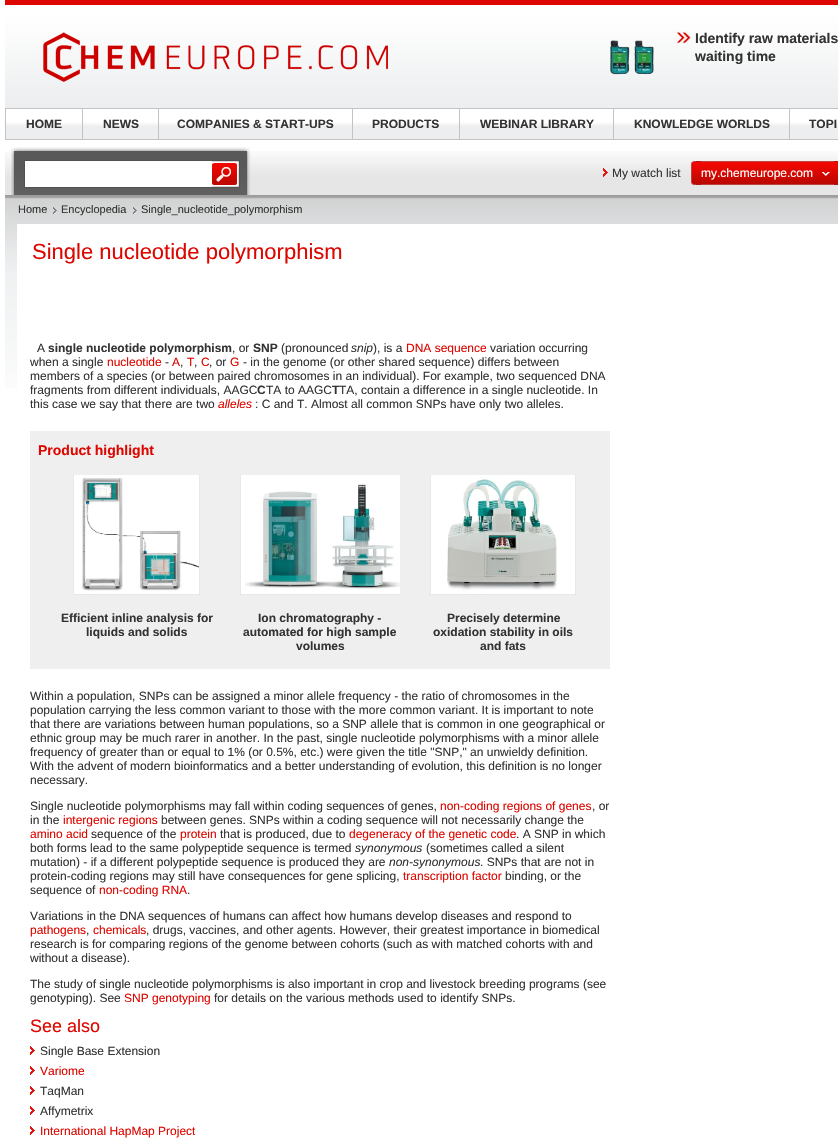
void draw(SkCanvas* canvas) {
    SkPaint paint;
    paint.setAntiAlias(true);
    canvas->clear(0xFFFFFFFF);
    canvas->drawImageRect(SkImages::DeferredFromEncodedData(SkData::MakeFromFileName("img1.png")), SkRect::MakeXYWH(5, 0, 833, 139), SkSamplingOptions());
    canvas->drawImageRect(SkImages::DeferredFromEncodedData(SkData::MakeFromFileName("img2.png")), SkRect::MakeXYWH(610, 40, 44, 35), SkSamplingOptions());
    canvas->drawImageRect(SkImages::DeferredFromEncodedData(SkData::MakeFromFileName("img3.png")), SkRect::MakeXYWH(677, 31, 14, 13), SkSamplingOptions());
    SkFont font1(fontMgr->matchFamilyStyle("Liberation Sans", SkFontStyle::Bold()), 14);
    font1.setSubpixel(true);
    paint.setColor(0xFF333333);
    canvas->drawString("Identify raw materials", 695, 43, font1, paint);
    canvas->drawString("waiting time", 695, 61, font1, paint);
    paint.setColor(0xFFC3C3C3);
    canvas->drawRect(SkRect::MakeXYWH(5, 108, 833, 1), paint);
    canvas->drawRect(SkRect::MakeXYWH(5, 139, 833, 1), paint);
    canvas->drawImageRect(SkImages::DeferredFromEncodedData(SkData::MakeFromFileName("img4.png")), SkRect::MakeXYWH(6, 109, 76, 17), SkSamplingOptions());
    canvas->drawRect(SkRect::MakeXYWH(5, 109, 1, 30), paint);
    SkFont font2(fontMgr->matchFamilyStyle("Liberation Sans", SkFontStyle::Bold()), 12);
    font2.setSubpixel(true);
    paint.setColor(0xFF333333);
    canvas->drawString("HOME", 26, 128, font2, paint);
    canvas->drawImageRect(SkImages::DeferredFromEncodedData(SkData::MakeFromFileName("img5.png")), SkRect::MakeXYWH(83, 109, 75, 17), SkSamplingOptions());
    paint.setColor(0xFFC3C3C3);
    canvas->drawRect(SkRect::MakeXYWH(82, 109, 1, 30), paint);
    paint.setColor(0xFF333333);
    canvas->drawString("NEWS", 103, 128, font2, paint);
    canvas->drawImageRect(SkImages::DeferredFromEncodedData(SkData::MakeFromFileName("img6.png")), SkRect::MakeXYWH(159, 109, 193, 17), SkSamplingOptions());
    paint.setColor(0xFFC3C3C3);
    canvas->drawRect(SkRect::MakeXYWH(158, 109, 1, 30), paint);
    paint.setColor(0xFF333333);
    canvas->drawString("COMPANIES & START-UPS", 177, 128, font2, paint);
    canvas->drawImageRect(SkImages::DeferredFromEncodedData(SkData::MakeFromFileName("img7.png")), SkRect::MakeXYWH(353, 109, 106, 17), SkSamplingOptions());
    paint.setColor(0xFFC3C3C3);
    canvas->drawRect(SkRect::MakeXYWH(352, 109, 1, 30), paint);
    paint.setColor(0xFF333333);
    canvas->drawString("PRODUCTS", 372, 128, font2, paint);
    canvas->drawImageRect(SkImages::DeferredFromEncodedData(SkData::MakeFromFileName("img8.png")), SkRect::MakeXYWH(460, 109, 153, 17), SkSamplingOptions());
    paint.setColor(0xFFC3C3C3);
    canvas->drawRect(SkRect::MakeXYWH(459, 109, 1, 30), paint);
    paint.setColor(0xFF333333);
    canvas->drawString("WEBINAR LIBRARY", 480, 128, font2, paint);
    canvas->drawImageRect(SkImages::DeferredFromEncodedData(SkData::MakeFromFileName("img9.png")), SkRect::MakeXYWH(614, 109, 175, 17), SkSamplingOptions());
    paint.setColor(0xFFC3C3C3);
    canvas->drawRect(SkRect::MakeXYWH(613, 109, 1, 30), paint);
    paint.setColor(0xFF333333);
    canvas->drawString("KNOWLEDGE WORLDS", 634, 128, font2, paint);
    canvas->drawImageRect(SkImages::DeferredFromEncodedData(SkData::MakeFromFileName("img10.png")), SkRect::MakeXYWH(790, 109, 48, 17), SkSamplingOptions());
    paint.setColor(0xFFC3C3C3);
    canvas->drawRect(SkRect::MakeXYWH(789, 109, 1, 30), paint);
    paint.setColor(0xFF333333);
    canvas->drawString("TOPI", 809, 128, font2, paint);
    canvas->drawImageRect(SkImages::DeferredFromEncodedData(SkData::MakeFromFileName("img11.png")), SkRect::MakeXYWH(43, 32, 345, 50), SkSamplingOptions());
    canvas->drawImageRect(SkImages::DeferredFromEncodedData(SkData::MakeFromFileName("img12.png")), SkRect::MakeXYWH(5, 151, 833, 237), SkSamplingOptions());
    canvas->drawImageRect(SkImages::DeferredFromEncodedData(SkData::MakeFromFileName("img13.png")), SkRect::MakeXYWH(11, 147, 240, 48), SkSamplingOptions());
    paint.setColor(0xFFFFFFFF);
    canvas->drawRect(SkRect::MakeXYWH(25, 161, 187, 26), paint);
    paint.setColor(0xFF535252);
    canvas->drawRect(SkRect::MakeXYWH(24, 160, 188, 1), paint);
    canvas->drawRect(SkRect::MakeXYWH(24, 187, 188, 1), paint);
    canvas->drawRect(SkRect::MakeXYWH(24, 160, 1, 28), paint);
    canvas->drawImageRect(SkImages::DeferredFromEncodedData(SkData::MakeFromFileName("img14.png")), SkRect::MakeXYWH(212, 160, 28, 28), SkSamplingOptions());
    canvas->drawImageRect(SkImages::DeferredFromEncodedData(SkData::MakeFromFileName("img15.png")), SkRect::MakeXYWH(603, 168, 5, 9), SkSamplingOptions());
    SkFont font3(fontMgr->matchFamilyStyle("Liberation Sans", SkFontStyle::Normal()), 12);
    font3.setSubpixel(true);
    paint.setColor(0xFF333333);
    canvas->drawString("My watch list", 612, 177, font3, paint);
    canvas->drawImageRect(SkImages::DeferredFromEncodedData(SkData::MakeFromFileName("img16.png")), SkRect::MakeXYWH(691, 161, 10, 24), SkSamplingOptions());
    canvas->drawImageRect(SkImages::DeferredFromEncodedData(SkData::MakeFromFileName("img17.png")), SkRect::MakeXYWH(834, 161, 4, 24), SkSamplingOptions());
    canvas->drawImageRect(SkImages::DeferredFromEncodedData(SkData::MakeFromFileName("img18.png")), SkRect::MakeXYWH(696, 161, 142, 24), SkSamplingOptions());
    paint.setColor(0xFFFFFFFF);
    canvas->drawString("my.chemeurope.com", 701, 177, font3, paint);
    canvas->drawImageRect(SkImages::DeferredFromEncodedData(SkData::MakeFromFileName("img19.png")), SkRect::MakeXYWH(822, 172, 8, 4), SkSamplingOptions());
    SkFont font4(fontMgr->matchFamilyStyle("Liberation Sans", SkFontStyle::Normal()), 11);
    font4.setSubpixel(true);
    paint.setColor(0xFF333333);
    canvas->drawString("Home", 18, 213, font4, paint);
    canvas->drawImageRect(SkImages::DeferredFromEncodedData(SkData::MakeFromFileName("img20.png")), SkRect::MakeXYWH(53, 207, 4, 7), SkSamplingOptions());
    canvas->drawString("Encyclopedia", 61, 213, font4, paint);
    canvas->drawImageRect(SkImages::DeferredFromEncodedData(SkData::MakeFromFileName("img20.png")), SkRect::MakeXYWH(133, 207, 4, 7), SkSamplingOptions());
    canvas->drawString("Single_nucleotide_polymorphism", 141, 213, font4, paint);
    paint.setColor(0xFFFFFFFF);
    canvas->drawRect(SkRect::MakeXYWH(17, 224, 821, 164), paint);
    SkFont font5(fontMgr->matchFamilyStyle("Liberation Sans", SkFontStyle::Normal()), 22);
    font5.setSubpixel(true);
    paint.setColor(0xFFDD0700);
    canvas->drawString("Single nucleotide polymorphism", 32, 259, font5, paint);
    paint.setColor(0xFF333333);
    canvas->drawString("A", 37, 352, font3, paint);
    canvas->drawString("single nucleotide polymorphism", 48, 352, font2, paint);
    canvas->drawString(", or", 232, 352, font3, paint);
    canvas->drawString("SNP", 253, 352, font2, paint);
    canvas->drawString("(pronounced", 281, 352, font3, paint);
    SkFont font6(fontMgr->matchFamilyStyle("Liberation Sans", SkFontStyle::Italic()), 12);
    font6.setSubpixel(true);
    canvas->drawString("snip", 351, 352, font6, paint);
    canvas->drawString("), is a", 373, 352, font3, paint);
    paint.setColor(0xFFDD0700);
    canvas->drawString("DNA sequence", 406, 352, font3, paint);
    paint.setColor(0xFF333333);
    canvas->drawString("variation occurring", 490, 352, font3, paint);
    canvas->drawString("when a single", 30, 366, font3, paint);
    paint.setColor(0xFFDD0700);
    canvas->drawString("nucleotide", 107, 366, font3, paint);
    paint.setColor(0xFF333333);
    canvas->drawString("-", 165, 366, font3, paint);
    paint.setColor(0xFFDD0700);
    canvas->drawString("A", 172, 366, font3, paint);
    canvas->drawString("T", 187, 366, font3, paint);
    canvas->drawString("C", 201, 366, font3, paint);
    paint.setColor(0xFF333333);
    canvas->drawString(", or", 209, 366, font3, paint);
    paint.setColor(0xFFDD0700);
    canvas->drawString("G", 230, 366, font3, paint);
    paint.setColor(0xFF333333);
    canvas->drawString("- in the genome (or other shared sequence) differs between", 243, 366, font3, paint);
    canvas->drawString(",", 180, 366, font3, paint);
    canvas->drawString(",", 194, 366, font3, paint);
    canvas->drawString("members of a species (or between paired chromosomes in an individual). For example, two sequenced DNA", 30, 380, font3, paint);
    canvas->drawString("fragments from different individuals, AAGC", 30, 394, font3, paint);
    canvas->drawString("C", 257, 394, font2, paint);
    canvas->drawString("TA to AAGC", 266, 394, font3, paint);
    canvas->drawString("T", 332, 394, font2, paint);
    canvas->drawString("TA, contain a difference in a single nucleotide. In", 339, 394, font3, paint);
    canvas->drawString("this case we say that there are two", 30, 408, font3, paint);
    paint.setColor(0xFFDD0700);
    canvas->drawString("alleles", 218, 408, font6, paint);
    paint.setColor(0xFF333333);
    canvas->drawString(": C and T. Almost all common SNPs have only two alleles.", 255, 408, font3, paint);
    paint.setColor(0xFFEFEFEF);
    canvas->drawRect(SkRect::MakeXYWH(30, 431, 580, 238), paint);
    paint.setColor(0xFFDD0700);
    canvas->drawString("Product highlight", 38, 455, font1, paint);
    canvas->save();
    canvas->clipRect(SkRect::MakeXYWH(57, 475, 160, 120));
    paint.setStyle(SkPaint::kStroke_Style);
    paint.setStrokeWidth(1);
    paint.setColor(0xFFE8E8E8);
    canvas->drawRect(SkRect::MakeXYWH(73.5f, 473.5f, 126, 121), paint);
    canvas->restore();
    canvas->drawImageRect(SkImages::DeferredFromEncodedData(SkData::MakeFromFileName("img21.png")), SkRect::MakeXYWH(74, 475, 125, 119), SkSamplingOptions());
    paint.setStyle(SkPaint::kFill_Style);
    paint.setColor(0xFF333333);
    canvas->drawString("Efficient inline analysis for", 61, 622, font2, paint);
    canvas->drawString("liquids and solids", 86, 636, font2, paint);
    canvas->save();
    canvas->clipRect(SkRect::MakeXYWH(240, 475, 160, 120));
    paint.setStyle(SkPaint::kStroke_Style);
    paint.setColor(0xFFE8E8E8);
    canvas->drawRect(SkRect::MakeXYWH(240.5f, 473.5f, 171, 121), paint);
    canvas->restore();
    canvas->drawImageRect(SkImages::DeferredFromEncodedData(SkData::MakeFromFileName("img22.png")), SkRect::MakeXYWH(241, 475, 159, 119), SkSamplingOptions());
    paint.setStyle(SkPaint::kFill_Style);
    paint.setColor(0xFF333333);
    canvas->drawString("Ion chromatography -", 258, 622, font2, paint);
    canvas->drawString("automated for high sample", 243, 636, font2, paint);
    canvas->drawString("volumes", 296, 650, font2, paint);
    canvas->save();
    canvas->clipRect(SkRect::MakeXYWH(423, 475, 160, 120));
    paint.setStyle(SkPaint::kStroke_Style);
    paint.setColor(0xFFE8E8E8);
    canvas->drawRect(SkRect::MakeXYWH(430.5f, 473.5f, 145, 121), paint);
    canvas->restore();
    canvas->drawImageRect(SkImages::DeferredFromEncodedData(SkData::MakeFromFileName("img23.png")), SkRect::MakeXYWH(431, 475, 144, 119), SkSamplingOptions());
    paint.setStyle(SkPaint::kFill_Style);
    paint.setColor(0xFF333333);
    canvas->drawString("Precisely determine", 447, 622, font2, paint);
    canvas->drawString("oxidation stability in oils", 433, 636, font2, paint);
    canvas->drawString("and fats", 480, 650, font2, paint);
    canvas->drawString("Within a population, SNPs can be assigned a minor allele frequency - the ratio of chromosomes in the", 30, 700, font3, paint);
    canvas->drawString("population carrying the less common variant to those with the more common variant. It is important to note", 30, 714, font3, paint);
    canvas->drawString("that there are variations between human populations, so a SNP allele that is common in one geographical or", 30, 728, font3, paint);
    canvas->drawString("ethnic group may be much rarer in another. In the past, single nucleotide polymorphisms with a minor allele", 30, 742, font3, paint);
    canvas->drawString("frequency of greater than or equal to 1% (or 0.5%, etc.) were given the title \"SNP,\" an unwieldy definition.", 30, 756, font3, paint);
    canvas->drawString("With the advent of modern bioinformatics and a better understanding of evolution, this definition is no longer", 30, 770, font3, paint);
    canvas->drawString("necessary.", 30, 784, font3, paint);
    canvas->drawString("Single nucleotide polymorphisms may fall within coding sequences of genes,", 30, 810, font3, paint);
    paint.setColor(0xFFDD0700);
    canvas->drawString("non-coding regions of genes", 440, 810, font3, paint);
    paint.setColor(0xFF333333);
    canvas->drawString(", or", 592, 810, font3, paint);
    canvas->drawString("in the", 30, 824, font3, paint);
    paint.setColor(0xFFDD0700);
    canvas->drawString("intergenic regions", 63, 824, font3, paint);
    paint.setColor(0xFF333333);
    canvas->drawString("between genes. SNPs within a coding sequence will not necessarily change the", 161, 824, font3, paint);
    paint.setColor(0xFFDD0700);
    canvas->drawString("amino acid", 30, 838, font3, paint);
    paint.setColor(0xFF333333);
    canvas->drawString("sequence of the", 91, 838, font3, paint);
    paint.setColor(0xFFDD0700);
    canvas->drawString("protein", 180, 838, font3, paint);
    paint.setColor(0xFF333333);
    canvas->drawString("that is produced, due to", 220, 838, font3, paint);
    paint.setColor(0xFFDD0700);
    canvas->drawString("degeneracy of the genetic code", 349, 838, font3, paint);
    paint.setColor(0xFF333333);
    canvas->drawString(". A SNP in which", 516, 838, font3, paint);
    canvas->drawString("both forms lead to the same polypeptide sequence is termed", 30, 852, font3, paint);
    canvas->drawString("synonymous", 355, 852, font6, paint);
    canvas->drawString("(sometimes called a silent", 426, 852, font3, paint);
    canvas->drawString("mutation) - if a different polypeptide sequence is produced they are", 30, 866, font3, paint);
    canvas->drawString("non-synonymous", 389, 866, font6, paint);
    canvas->drawString(". SNPs that are not in", 480, 866, font3, paint);
    canvas->drawString("protein-coding regions may still have consequences for gene splicing,", 30, 880, font3, paint);
    paint.setColor(0xFFDD0700);
    canvas->drawString("transcription factor", 403, 880, font3, paint);
    paint.setColor(0xFF333333);
    canvas->drawString("binding, or the", 505, 880, font3, paint);
    canvas->drawString("sequence of", 30, 894, font3, paint);
    paint.setColor(0xFFDD0700);
    canvas->drawString("non-coding RNA", 99, 894, font3, paint);
    paint.setColor(0xFF333333);
    canvas->drawString(".", 187, 894, font3, paint);
    canvas->drawString("Variations in the DNA sequences of humans can affect how humans develop diseases and respond to", 30, 920, font3, paint);
    paint.setColor(0xFFDD0700);
    canvas->drawString("pathogens", 30, 934, font3, paint);
    paint.setColor(0xFF333333);
    canvas->drawString(",", 86, 934, font3, paint);
    paint.setColor(0xFFDD0700);
    canvas->drawString("chemicals", 93, 934, font3, paint);
    paint.setColor(0xFF333333);
    canvas->drawString(", drugs, vaccines, and other agents. However, their greatest importance in biomedical", 146, 934, font3, paint);
    canvas->drawString("research is for comparing regions of the genome between cohorts (such as with matched cohorts with and", 30, 948, font3, paint);
    canvas->drawString("without a disease).", 30, 962, font3, paint);
    canvas->drawString("The study of single nucleotide polymorphisms is also important in crop and livestock breeding programs (see", 30, 988, font3, paint);
    canvas->drawString("genotyping). See", 30, 1002, font3, paint);
    paint.setColor(0xFFDD0700);
    canvas->drawString("SNP genotyping", 124, 1002, font3, paint);
    paint.setColor(0xFF333333);
    canvas->drawString("for details on the various methods used to identify SNPs.", 214, 1002, font3, paint);
    SkFont font7(fontMgr->matchFamilyStyle("Liberation Sans", SkFontStyle::Normal()), 18);
    font7.setSubpixel(true);
    paint.setColor(0xFFDD0700);
    canvas->drawString("See also", 30, 1032, font7, paint);
    canvas->drawImageRect(SkImages::DeferredFromEncodedData(SkData::MakeFromFileName("img24.png")), SkRect::MakeXYWH(30, 1046, 5, 9), SkSamplingOptions());
    paint.setColor(0xFF333333);
    canvas->drawString("Single Base Extension", 40, 1055, font3, paint);
    canvas->drawImageRect(SkImages::DeferredFromEncodedData(SkData::MakeFromFileName("img24.png")), SkRect::MakeXYWH(30, 1066, 5, 9), SkSamplingOptions());
    paint.setColor(0xFFDD0700);
    canvas->drawString("Variome", 40, 1075, font3, paint);
    canvas->drawImageRect(SkImages::DeferredFromEncodedData(SkData::MakeFromFileName("img24.png")), SkRect::MakeXYWH(30, 1086, 5, 9), SkSamplingOptions());
    paint.setColor(0xFF333333);
    canvas->drawString("TaqMan", 40, 1095, font3, paint);
    canvas->drawImageRect(SkImages::DeferredFromEncodedData(SkData::MakeFromFileName("img24.png")), SkRect::MakeXYWH(30, 1106, 5, 9), SkSamplingOptions());
    canvas->drawString("Affymetrix", 40, 1115, font3, paint);
    canvas->drawImageRect(SkImages::DeferredFromEncodedData(SkData::MakeFromFileName("img24.png")), SkRect::MakeXYWH(30, 1126, 5, 9), SkSamplingOptions());
    paint.setColor(0xFFDD0700);
    canvas->drawString("International HapMap Project", 40, 1135, font3, paint);
}
